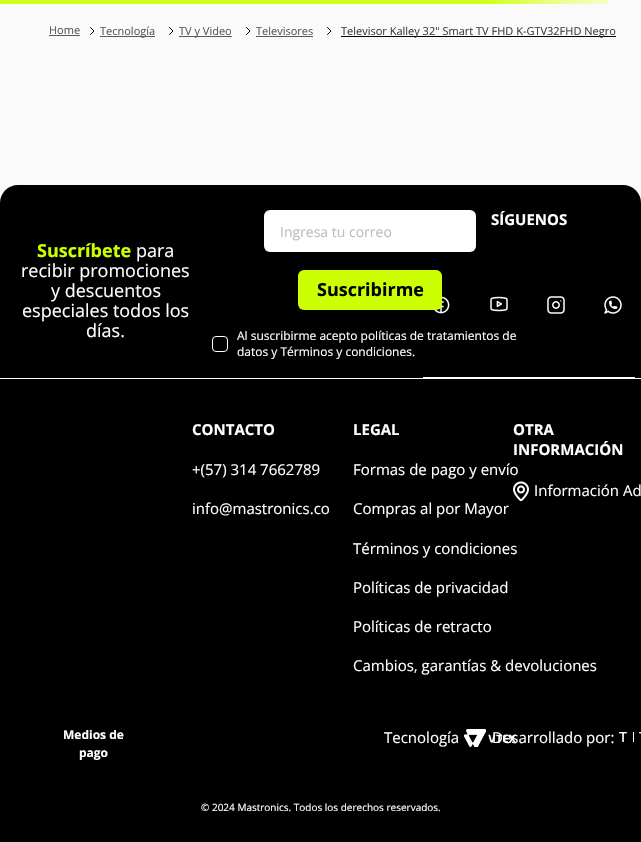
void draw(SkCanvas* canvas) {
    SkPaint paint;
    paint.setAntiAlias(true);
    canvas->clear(0xFFFAFAFA);
    {
        const SkColor colors[] = {0xFFD1FF1A, 0xFFE6FF80, 0xFFF5FFCC};
        const float stops[] = {0.8f, 0.9f, 1};
        const SkPoint ends[] = {{0, 2}, {609, 2}};
        paint.setShader(SkGradientShader::MakeLinear(ends, colors, stops, 3, SkTileMode::kClamp));
        paint.setAlpha(255);
    }
    canvas->drawRect(SkRect::MakeXYWH(0, 0, 609, 4), paint);
    SkFont font1(fontMgr->matchFamilyStyle("Open Sans", SkFontStyle::Normal()), 11);
    font1.setSubpixel(true);
    paint.setShader(nullptr);
    paint.setColor(0xFF58595B);
    canvas->drawString("Home", 49, 34, font1, paint);
    canvas->drawRect(SkRect::MakeXYWH(49, 35, 31, 1), paint);
    paint.setStyle(SkPaint::kStroke_Style);
    paint.setStrokeWidth(1);
    paint.setStrokeCap(SkPaint::kRound_Cap);
    paint.setStrokeJoin(SkPaint::kRound_Join);
    paint.setColor(0xFF000000);
    canvas->drawPath(SkPathBuilder().moveTo(90.5f, 34.5f).lineTo(94, 31).lineTo(90.5f, 27.5f).detach(), paint);
    paint.setStyle(SkPaint::kFill_Style);
    paint.setColor(0xFF58595B);
    canvas->drawRect(SkRect::MakeXYWH(100, 36, 55, 1), paint);
    canvas->drawString("Tecnología", 100, 35, font1, paint);
    paint.setStyle(SkPaint::kStroke_Style);
    paint.setColor(0xFF000000);
    canvas->drawPath(SkPathBuilder().moveTo(169.5f, 34.5f).lineTo(173, 31).lineTo(169.5f, 27.5f).detach(), paint);
    paint.setStyle(SkPaint::kFill_Style);
    paint.setColor(0xFF58595B);
    canvas->drawRect(SkRect::MakeXYWH(179, 36, 53, 1), paint);
    canvas->drawString("TV y Video", 179, 35, font1, paint);
    paint.setStyle(SkPaint::kStroke_Style);
    paint.setColor(0xFF000000);
    canvas->drawPath(SkPathBuilder().moveTo(246.5f, 34.5f).lineTo(250, 31).lineTo(246.5f, 27.5f).detach(), paint);
    paint.setStyle(SkPaint::kFill_Style);
    paint.setColor(0xFF58595B);
    canvas->drawString("Televisores", 256, 35, font1, paint);
    canvas->drawRect(SkRect::MakeXYWH(256, 36, 57, 1), paint);
    paint.setStyle(SkPaint::kStroke_Style);
    paint.setColor(0xFF000000);
    canvas->drawPath(SkPathBuilder().moveTo(327.5f, 34.5f).lineTo(331, 31).lineTo(327.5f, 27.5f).detach(), paint);
    paint.setStyle(SkPaint::kFill_Style);
    canvas->drawRect(SkRect::MakeXYWH(341, 36, 275, 1), paint);
    paint.setColor(0xFF3F3F40);
    canvas->drawString("Televisor Kalley 32\" Smart TV FHD K-GTV32FHD Negro", 341, 35, font1, paint);
    paint.setColor(0xFF000000);
    canvas->drawPath(SkPathBuilder().moveTo(18, 185).lineTo(623, 185).cubicTo(633, 185, 641, 193, 641, 203).lineTo(641, 842).lineTo(0, 842).lineTo(0, 203).cubicTo(0, 193, 8, 185, 18, 185).close().detach(), paint);
    paint.setColor(0xFFFAFAFA);
    canvas->drawRect(SkRect::MakeXYWH(0, 378, 641, 1), paint);
    paint.setColor(0xFFFFFFFF);
    canvas->drawRect(SkRect::MakeXYWH(423, 377, 212, 1), paint);
    SkFont font2(fontMgr->matchFamilyStyle("Open Sans", SkFontStyle::Bold()), 15);
    font2.setSubpixel(true);
    canvas->drawString("SÍGUENOS", 491, 225, font2, paint);
    canvas->drawImageRect(SkImages::DeferredFromEncodedData(SkData::MakeFromFileName("img1.png")), SkRect::MakeXYWH(434, 296, 16, 18), SkSamplingOptions());
    canvas->drawImageRect(SkImages::DeferredFromEncodedData(SkData::MakeFromFileName("img2.png")), SkRect::MakeXYWH(490, 296, 18, 16), SkSamplingOptions());
    canvas->drawImageRect(SkImages::DeferredFromEncodedData(SkData::MakeFromFileName("img3.png")), SkRect::MakeXYWH(547, 296, 18, 18), SkSamplingOptions());
    canvas->drawImageRect(SkImages::DeferredFromEncodedData(SkData::MakeFromFileName("img4.png")), SkRect::MakeXYWH(604, 296, 18, 18), SkSamplingOptions());
    SkFont font3(fontMgr->matchFamilyStyle("Open Sans", SkFontStyle::Bold()), 18);
    font3.setSubpixel(true);
    paint.setColor(0xFFCCFF00);
    canvas->drawString("Suscríbete", 37, 257, font3, paint);
    SkFont font4(fontMgr->matchFamilyStyle("Open Sans", SkFontStyle::Normal()), 18);
    font4.setSubpixel(true);
    paint.setColor(0xFFFFFFFF);
    canvas->drawString("para", 136, 257, font4, paint);
    canvas->drawString("recibir promociones", 21, 277, font4, paint);
    canvas->drawString("y descuentos", 51, 297, font4, paint);
    canvas->drawString("especiales todos los", 22, 317, font4, paint);
    canvas->drawString("días.", 86, 337, font4, paint);
    canvas->drawRoundRect(SkRect::MakeXYWH(264, 210, 212, 42), 6, 6, paint);
    SkFont font5(fontMgr->matchFamilyStyle("Open Sans", SkFontStyle::Normal()), 14);
    font5.setSubpixel(true);
    paint.setColor(0xFFBCBDBC);
    canvas->drawString("Ingresa tu correo", 280, 237, font5, paint);
    paint.setColor(0xFFCCFF00);
    canvas->drawRoundRect(SkRect::MakeXYWH(298, 270, 144, 40), 6, 6, paint);
    paint.setColor(0xFF000000);
    canvas->drawString("Suscribirme", 317, 296, font3, paint);
    paint.setStyle(SkPaint::kStroke_Style);
    paint.setStrokeCap(SkPaint::kButt_Cap);
    paint.setStrokeJoin(SkPaint::kMiter_Join);
    paint.setColor(0xFFFFFFFF);
    canvas->drawRoundRect(SkRect::MakeXYWH(212.5f, 336.5f, 15, 15), 3.5f, 3.5f, paint);
    SkFont font6(fontMgr->matchFamilyStyle("Open Sans", SkFontStyle::Normal()), 12);
    font6.setSubpixel(true);
    paint.setStyle(SkPaint::kFill_Style);
    canvas->drawString("Al suscribirme acepto políticas de tratamientos de", 237, 340, font6, paint);
    canvas->drawString("datos y Términos y condiciones.", 237, 356, font6, paint);
    canvas->drawString("CONTACTO", 192, 435, font2, paint);
    SkFont font7(fontMgr->matchFamilyStyle("Open Sans", SkFontStyle::Normal()), 15);
    font7.setSubpixel(true);
    canvas->drawString("+(57) 314 7662789", 192, 475, font7, paint);
    canvas->drawString("info@mastronics.co", 192, 514, font7, paint);
    canvas->drawString("LEGAL", 353, 435, font2, paint);
    canvas->drawString("Formas de pago y envío", 353, 475, font7, paint);
    canvas->drawString("Compras al por Mayor", 353, 514, font7, paint);
    canvas->drawString("Términos y condiciones", 353, 554, font7, paint);
    canvas->drawString("Políticas de privacidad", 353, 593, font7, paint);
    canvas->drawString("Políticas de retracto", 353, 632, font7, paint);
    canvas->drawString("Cambios, garantías & devoluciones", 353, 671, font7, paint);
    canvas->drawString("OTRA", 513, 435, font2, paint);
    canvas->drawString("INFORMACIÓN", 513, 455, font2, paint);
    canvas->drawImageRect(SkImages::DeferredFromEncodedData(SkData::MakeFromFileName("img5.png")), SkRect::MakeXYWH(513, 481, 16, 20), SkSamplingOptions());
    canvas->drawString("Información Ad", 534, 496, font7, paint);
    SkFont font8(fontMgr->matchFamilyStyle("Open Sans", SkFontStyle::Bold()), 12);
    font8.setSubpixel(true);
    canvas->drawString("Medios de", 63, 739, font8, paint);
    canvas->drawString("pago", 79, 757, font8, paint);
    canvas->drawString("Tecnología", 384, 743, font7, paint);
    canvas->drawImageRect(SkImages::DeferredFromEncodedData(SkData::MakeFromFileName("img6.png")), SkRect::MakeXYWH(464, 729, 52, 18), SkSamplingOptions());
    canvas->drawString("Desarrollado por:", 492, 743, font7, paint);
    canvas->drawImageRect(SkImages::DeferredFromEncodedData(SkData::MakeFromFileName("img7.png")), SkRect::MakeXYWH(619, 732, 22, 10), SkSamplingOptions());
    SkFont font9(fontMgr->matchFamilyStyle("Open Sans", SkFontStyle::Normal()), 10);
    font9.setSubpixel(true);
    canvas->drawString("© 2024 Mastronics. Todos los derechos reservados.", 201, 811, font9, paint);
}
